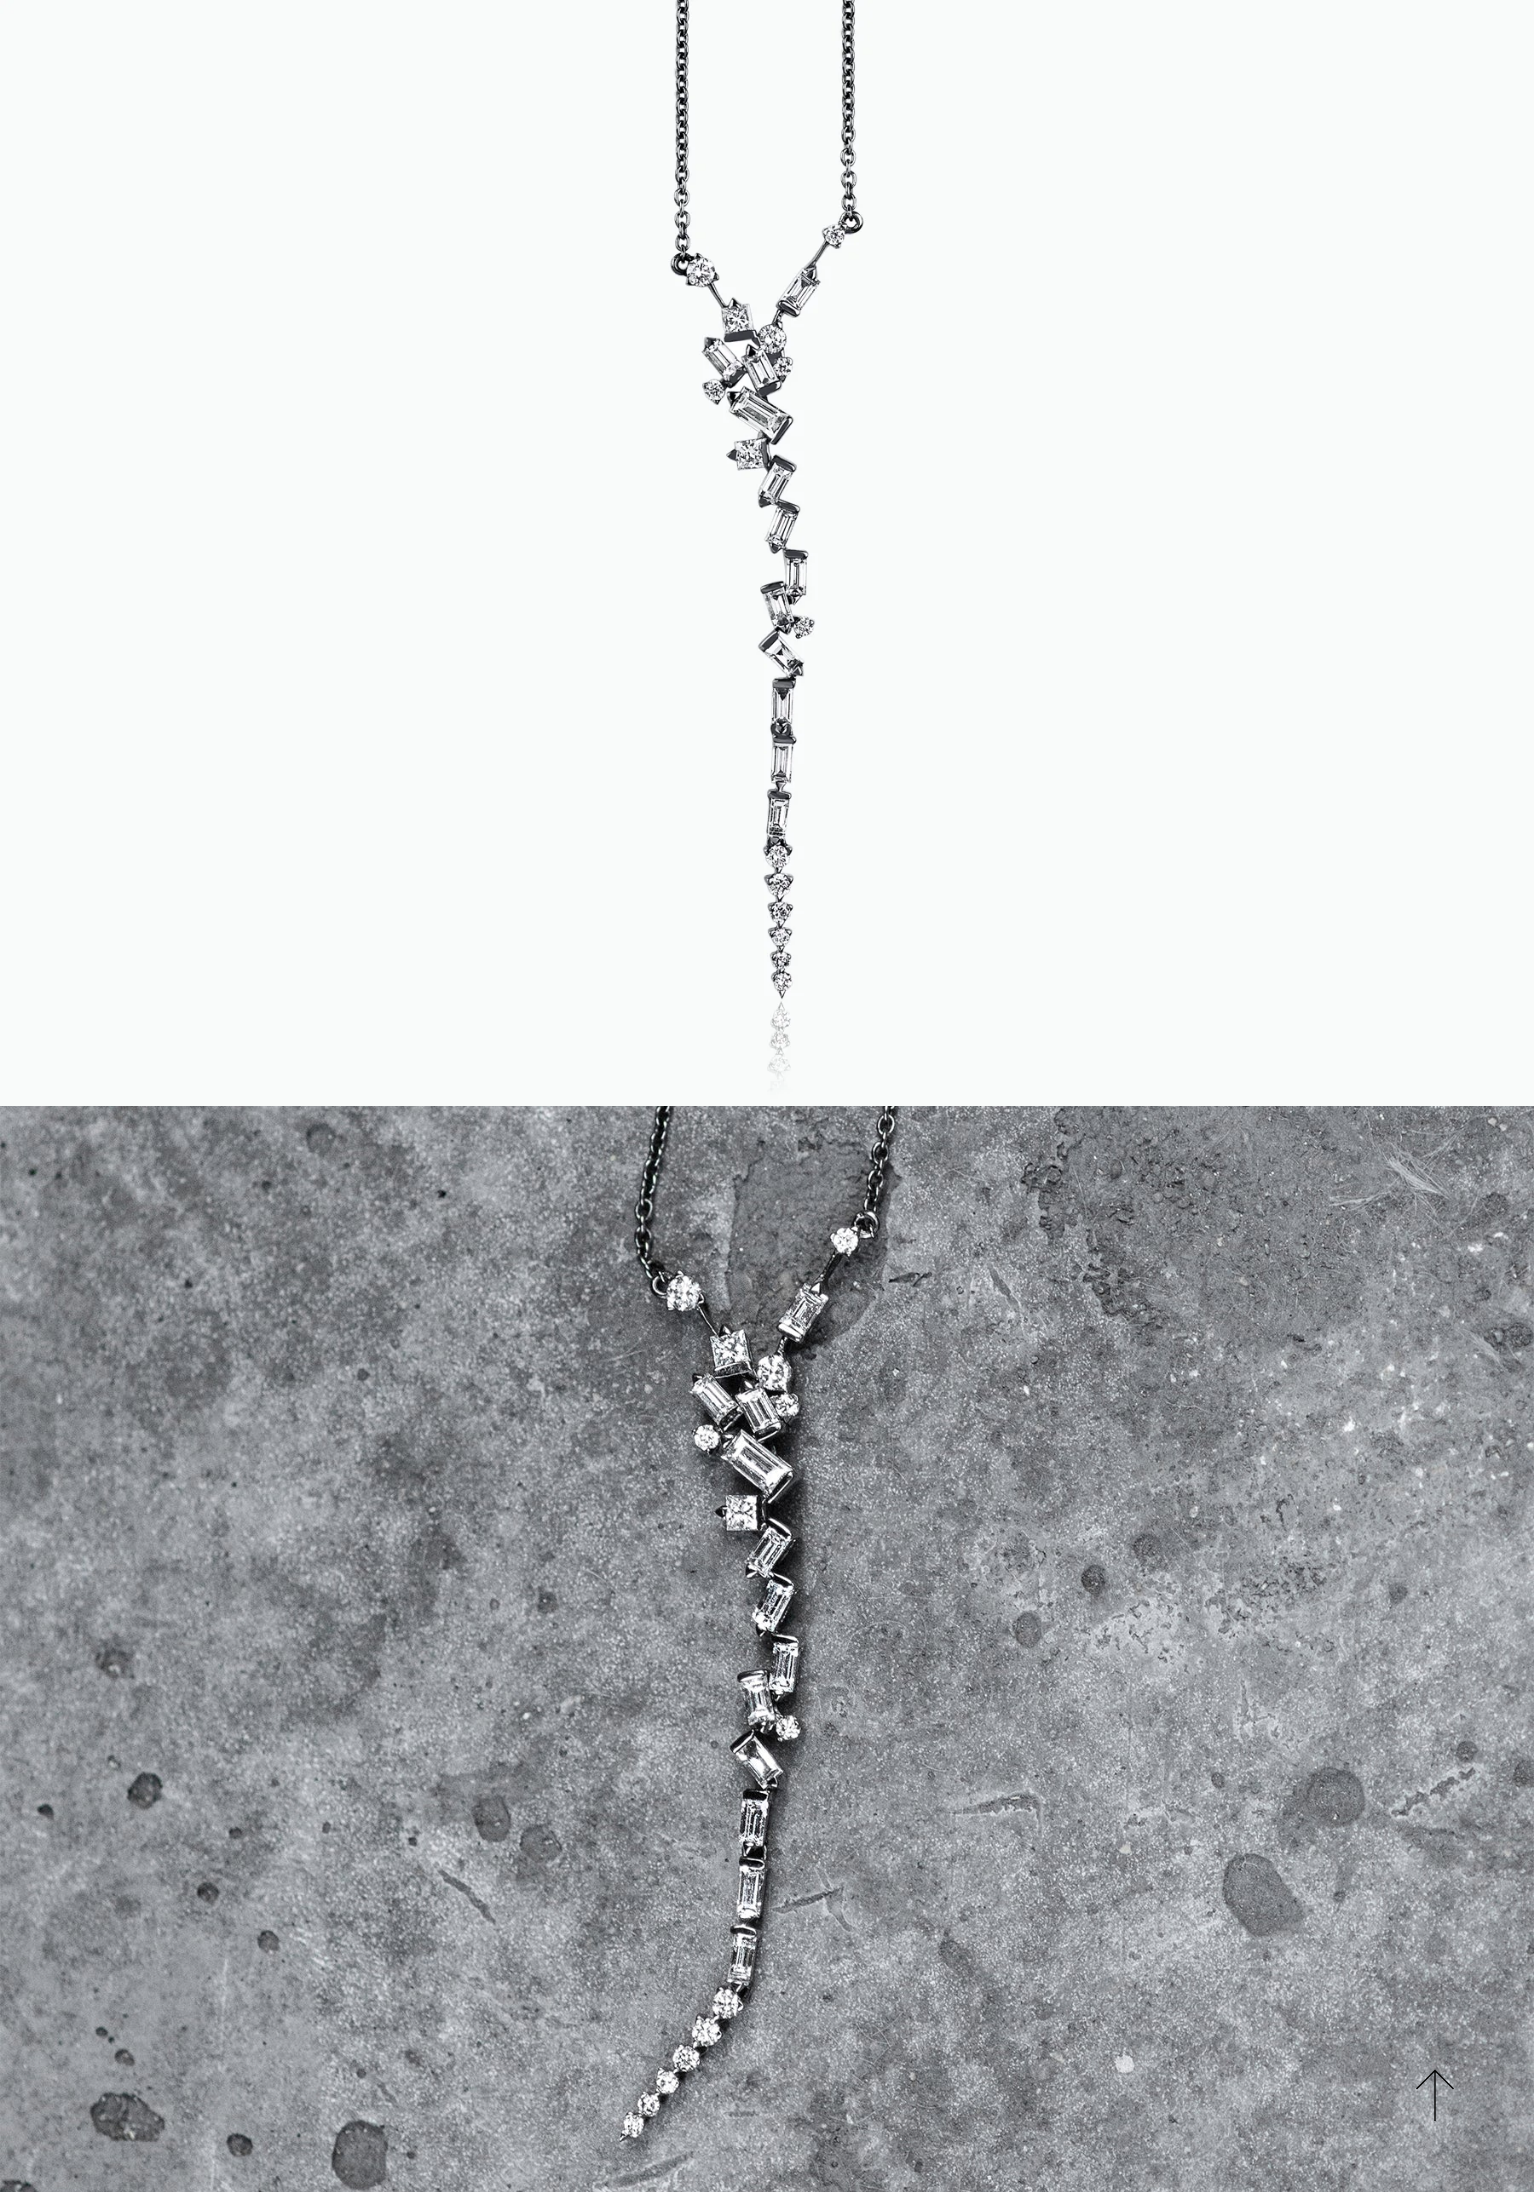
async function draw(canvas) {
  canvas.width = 1534
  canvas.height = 2192
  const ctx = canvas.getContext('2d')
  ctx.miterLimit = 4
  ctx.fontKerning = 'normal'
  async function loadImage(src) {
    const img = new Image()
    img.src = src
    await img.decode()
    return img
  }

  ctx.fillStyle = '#fff'
  ctx.fillRect(0, 0, 1534, 2192)
  ctx.drawImage(await loadImage('image0.png'), 0, 0, 1534, 1106)
  ctx.drawImage(await loadImage('image1.png'), 0, 1106, 1534, 1086)
  ctx.beginPath()
  ctx.moveTo(1435, 2121)
  ctx.lineTo(1435, 2070.5)
  ctx.moveTo(1453.5, 2089)
  ctx.lineTo(1435, 2070.5)
  ctx.lineTo(1416.5, 2089)
  ctx.strokeStyle = '#000'
  ctx.lineWidth = 1.4
  ctx.stroke()
}

draw(document.querySelector('canvas'))
